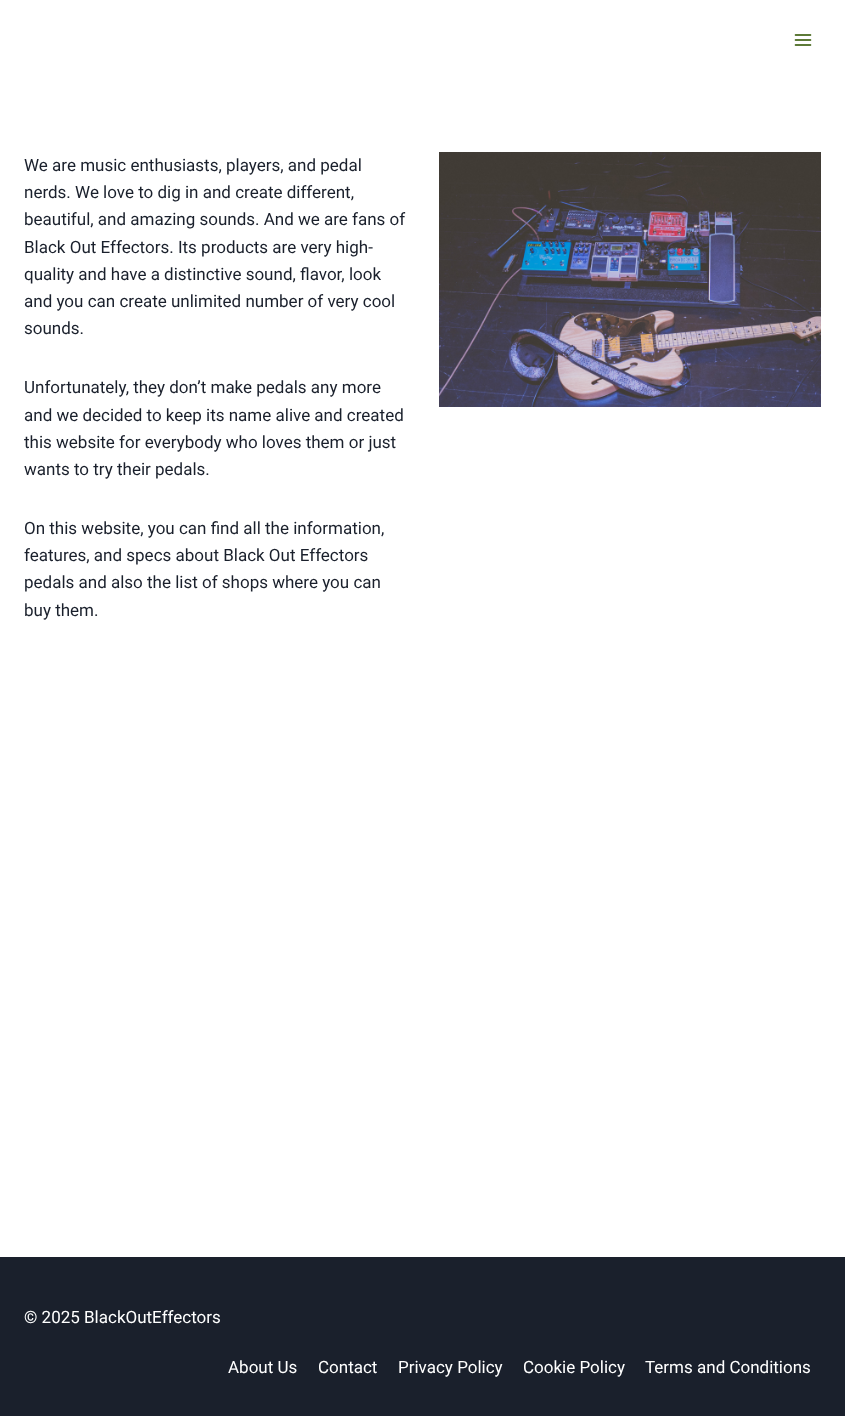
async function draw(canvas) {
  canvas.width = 845
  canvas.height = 1416
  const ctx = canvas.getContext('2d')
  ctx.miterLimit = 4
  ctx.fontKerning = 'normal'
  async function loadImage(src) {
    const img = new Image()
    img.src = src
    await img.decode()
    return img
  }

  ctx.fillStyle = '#fff'
  ctx.fillRect(0, 0, 845, 1416)
  ctx.drawImage(await loadImage('image0.png'), 794, 34, 18, 12)
  ctx.font = '17px Roboto'
  ctx.fillStyle = '#1a202c'
  ctx.fillText('We are music enthusiasts, players, and pedal', 24, 171)
  ctx.fillText('nerds. We love to dig in and create different,', 24, 198)
  ctx.fillText('beautiful, and amazing sounds. And we are fans of', 24, 225)
  ctx.fillText('Black Out Effectors. Its products are very high-', 24, 253)
  ctx.fillText('quality and have a distinctive sound, flavor, look', 24, 280)
  ctx.fillText('and you can create unlimited number of very cool', 24, 307)
  ctx.fillText('sounds.', 24, 334)
  ctx.fillText('Unfortunately, they don’t make pedals any more', 24, 393)
  ctx.fillText('and we decided to keep its name alive and created', 24, 421)
  ctx.fillText('this website for everybody who loves them or just', 24, 448)
  ctx.fillText('wants to try their pedals.', 24, 475)
  ctx.fillText('On this website, you can find all the information,', 24, 534)
  ctx.fillText('features, and specs about Black Out Effectors', 24, 561)
  ctx.fillText('pedals and also the list of shops where you can', 24, 588)
  ctx.fillText('buy them.', 24, 616)
  ctx.drawImage(await loadImage('image1.png'), 439, 152, 382, 255)
  ctx.fillRect(0, 1257, 845, 159)
  ctx.fillStyle = '#fff'
  ctx.fillText('© 2025 BlackOutEffectors', 24, 1323)
  ctx.fillText('About Us', 228, 1373)
  ctx.fillText('Contact', 318, 1373)
  ctx.fillText('Privacy Policy', 398, 1373)
  ctx.fillText('Cookie Policy', 523, 1373)
  ctx.fillText('Terms and Conditions', 645, 1373)
}

draw(document.querySelector('canvas'))
